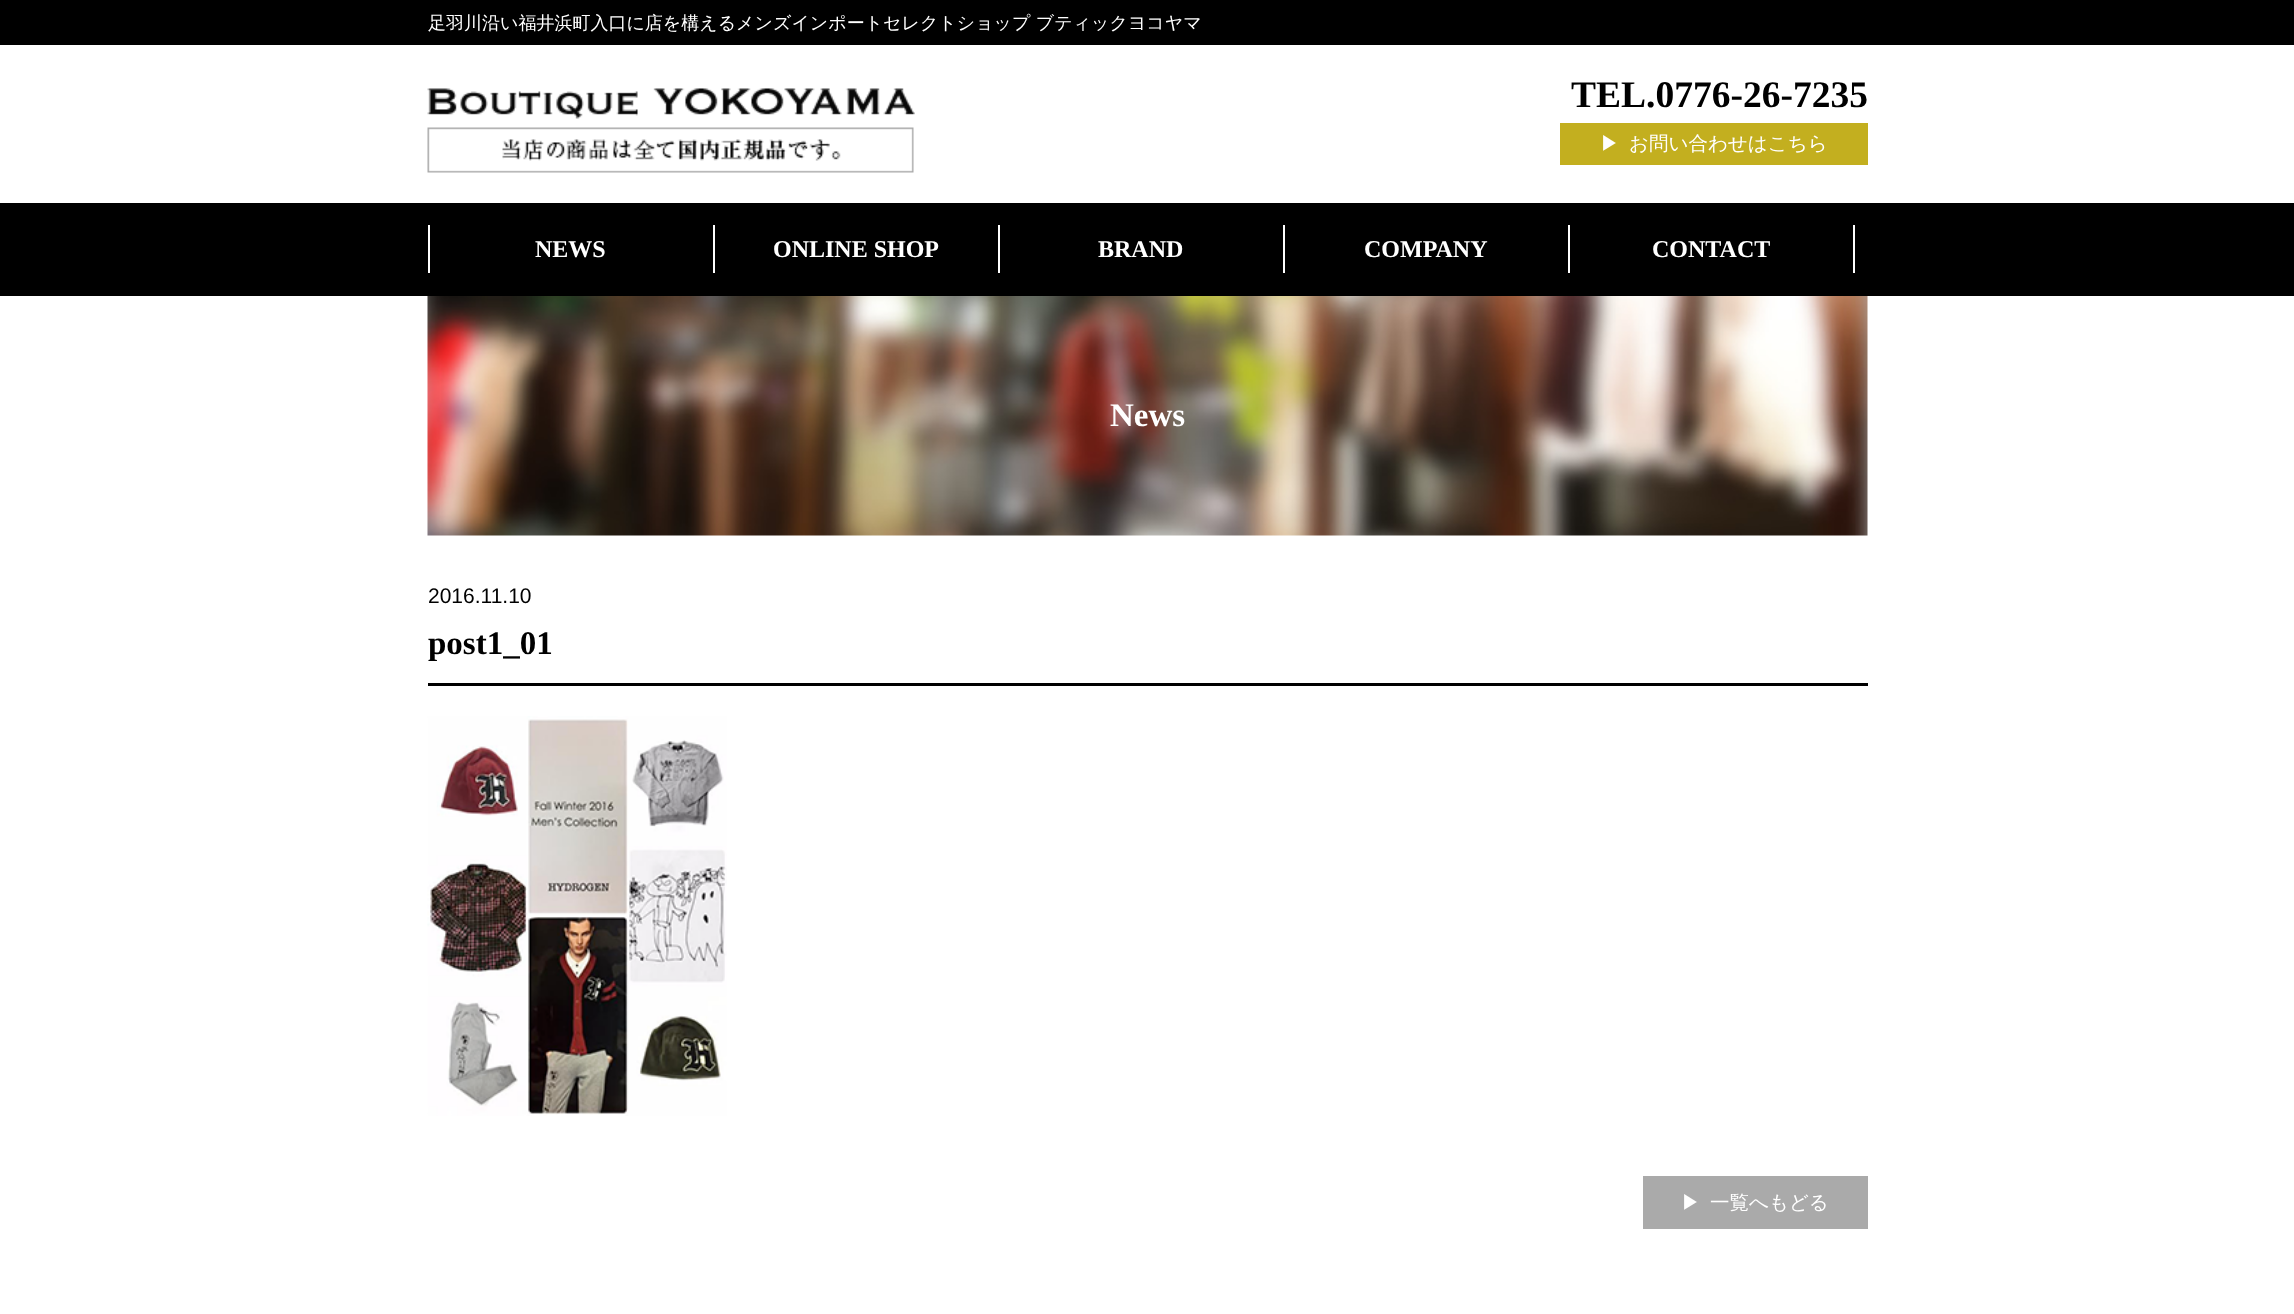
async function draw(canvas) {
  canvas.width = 2294
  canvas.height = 1314
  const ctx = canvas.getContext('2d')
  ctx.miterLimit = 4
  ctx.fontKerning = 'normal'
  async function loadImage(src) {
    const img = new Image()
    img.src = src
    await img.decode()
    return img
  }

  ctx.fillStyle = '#fff'
  ctx.fillRect(0, 0, 2294, 1314)
  ctx.fillStyle = '#000'
  ctx.fillRect(0, 0, 2294, 45)
  ctx.font = '500 18px WenQuanYi Zen Hei'
  ctx.fillStyle = '#fff'
  ctx.fillText('足羽川沿い福井浜町入口に店を構えるメンズインポートセレクトショップ ブティックヨコヤマ', 428, 29)
  ctx.drawImage(await loadImage('image0.png'), 427, 88, 488, 85)
  ctx.font = 'bold 37.5px Liberation Serif'
  ctx.fillStyle = '#000'
  ctx.fillText('TEL.0776-26-7235', 1571, 107)
  ctx.fillStyle = '#c3af1f'
  ctx.fillRect(1560, 123, 308, 42)
  ctx.font = '500 19.5px WenQuanYi Zen Hei'
  ctx.fillStyle = '#fff'
  ctx.fillText('▶', 1600, 150)
  ctx.fillText('お問い合わせはこちら', 1629, 150)
  ctx.fillStyle = '#000'
  ctx.fillRect(0, 203, 2294, 93)
  ctx.fillStyle = '#fff'
  ctx.fillRect(713, 225, 2, 48)
  ctx.fillRect(428, 225, 2, 48)
  ctx.font = 'bold 24px Liberation Serif'
  ctx.fillText('NEWS', 535, 257)
  ctx.fillRect(998, 225, 2, 48)
  ctx.fillText('ONLINE SHOP', 773, 257)
  ctx.fillRect(1283, 225, 2, 48)
  ctx.fillText('BRAND', 1098, 257)
  ctx.fillRect(1568, 225, 2, 48)
  ctx.fillText('COMPANY', 1364, 257)
  ctx.fillRect(1853, 225, 2, 48)
  ctx.fillText('CONTACT', 1652, 257)
  ctx.drawImage(await loadImage('image1.png'), 427, 296, 1441, 240)
  ctx.font = 'bold 33px Liberation Serif'
  ctx.fillText('News', 1110, 426)
  ctx.font = '21px Liberation Sans'
  ctx.fillStyle = '#000'
  ctx.fillText('2016.11.10', 428, 603)
  ctx.fillRect(428, 683, 1440, 3)
  ctx.font = 'bold 33px Liberation Serif'
  ctx.fillText('post1_01', 428, 654)
  ctx.drawImage(await loadImage('image2.png'), 427, 716, 300, 400)
  ctx.fillStyle = '#aaa'
  ctx.fillRect(1643, 1176, 225, 53)
  ctx.font = '500 19.5px WenQuanYi Zen Hei'
  ctx.fillStyle = '#fff'
  ctx.fillText('▶', 1681, 1209)
  ctx.fillText('一覧へもどる', 1710, 1209)
}

draw(document.querySelector('canvas'))
